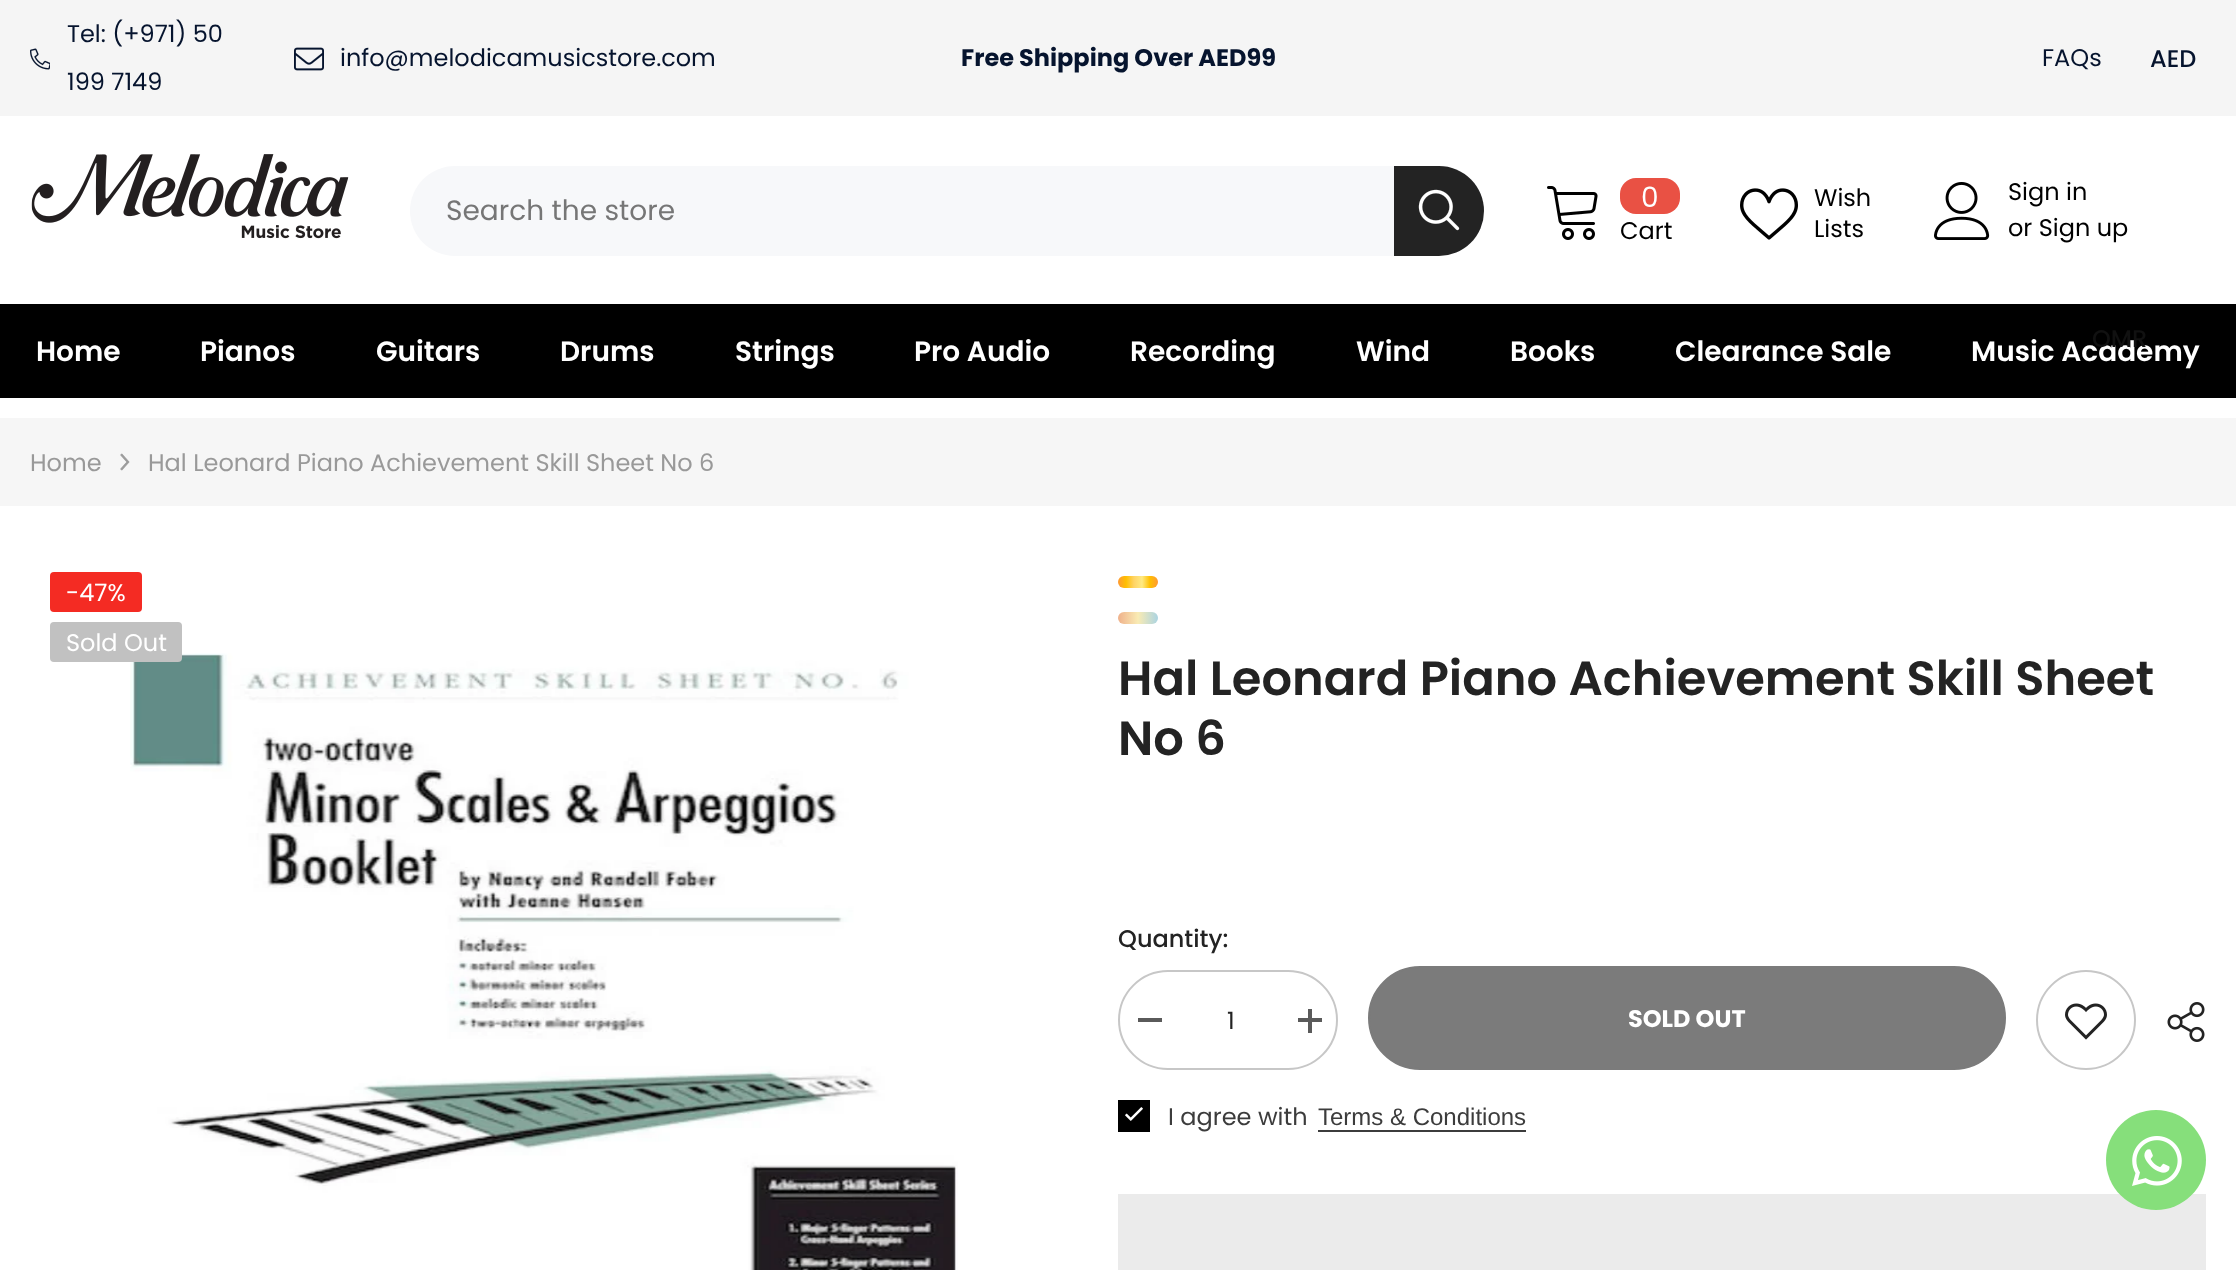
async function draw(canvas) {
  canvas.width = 2236
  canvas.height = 1270
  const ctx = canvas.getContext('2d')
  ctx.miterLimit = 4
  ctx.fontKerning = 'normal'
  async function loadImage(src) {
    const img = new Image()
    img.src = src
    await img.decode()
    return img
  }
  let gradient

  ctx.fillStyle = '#fff'
  ctx.fillRect(0, 0, 2236, 1270)
  ctx.fillStyle = '#f5f5f5'
  ctx.fillRect(0, 0, 2236, 116)
  ctx.drawImage(await loadImage('image0.png'), 30, 48, 20, 22)
  ctx.font = '24px Poppins'
  ctx.fillStyle = '#06142e'
  ctx.fillText('Tel: (+971) 50', 67, 42)
  ctx.fillText('199 7149', 67, 90)
  ctx.drawImage(await loadImage('image1.png'), 294, 47, 30, 24)
  ctx.fillText('info@melodicamusicstore.com', 340, 66)
  ctx.font = 'bold 24px Poppins'
  ctx.fillText('Free Shipping Over AED99', 961, 66)
  ctx.font = '24px Poppins'
  ctx.fillText('FAQs', 2042, 66)
  ctx.font = '500 24px Poppins'
  ctx.fillText('AED', 2150, 67)
  ctx.fillStyle = '#000'
  ctx.fillRect(0, 304, 2236, 94)
  ctx.font = '600 28px Poppins'
  ctx.fillStyle = '#fff'
  ctx.fillText('Music Academy', 1971, 361)
  ctx.font = '500 24px Poppins'
  ctx.fillStyle = '#111'
  ctx.fillText('OMR', 2092, 347)
  ctx.drawImage(await loadImage('image2.png'), 31, 154, 318, 85)
  ctx.fillStyle = '#f7f8fa'
  ctx.beginPath()
  ctx.roundRect(410, 166, 1074, 90, 45)
  ctx.fill()
  ctx.font = '28px Poppins'
  ctx.fillStyle = '#767676'
  ctx.fillText('Search the store', 446, 220)
  ctx.fillStyle = '#232323'
  ctx.beginPath()
  ctx.roundRect(1394, 166, 90, 90, [0, 45, 45, 0])
  ctx.fill()
  ctx.drawImage(await loadImage('image3.png'), 1418, 189, 42, 42)
  ctx.drawImage(await loadImage('image4.png'), 1547, 186, 51, 54)
  ctx.fillStyle = '#e95144'
  ctx.beginPath()
  ctx.roundRect(1620, 178, 60, 36, 16)
  ctx.fill()
  ctx.fillStyle = '#fff'
  ctx.fillText('0', 1641, 207)
  ctx.font = '24px Poppins'
  ctx.fillStyle = '#000'
  ctx.fillText('Cart', 1620, 239)
  ctx.drawImage(await loadImage('image5.png'), 1740, 188, 58, 52)
  ctx.fillText('Wish', 1814, 206)
  ctx.fillText('Lists', 1814, 237)
  ctx.drawImage(await loadImage('image6.png'), 1934, 182, 56, 58)
  ctx.fillText('Sign in', 2008, 200)
  ctx.fillText('or Sign up', 2008, 236)
  ctx.font = '600 28px Poppins'
  ctx.fillStyle = '#fff'
  ctx.fillText('Home', 36, 361)
  ctx.fillText('Pianos', 200, 361)
  ctx.fillText('Guitars', 376, 361)
  ctx.fillText('Drums', 560, 361)
  ctx.fillText('Strings', 735, 361)
  ctx.fillText('Pro Audio', 914, 361)
  ctx.fillText('Recording', 1130, 361)
  ctx.fillText('Wind', 1356, 361)
  ctx.fillText('Books', 1510, 361)
  ctx.fillText('Clearance Sale', 1675, 361)
  ctx.fillStyle = '#f6f6f6'
  ctx.fillRect(0, 418, 2236, 88)
  ctx.font = '24px Poppins'
  ctx.fillStyle = '#999'
  ctx.fillText('Home', 30, 471)
  ctx.drawImage(await loadImage('image7.png'), 120, 453, 10, 18)
  ctx.fillText('Hal Leonard Piano Achievement Skill Sheet No 6', 148, 471)
  ctx.fillStyle = '#f42b23'
  ctx.beginPath()
  ctx.roundRect(50, 572, 92, 40, 4)
  ctx.fill()
  ctx.fillStyle = '#fff'
  ctx.fillText('-47%', 66, 601)
  ctx.drawImage(await loadImage('image8.png'), 130, 653, 828, 617)
  ctx.fillStyle = '#c1c1c1'
  ctx.beginPath()
  ctx.roundRect(50, 622, 132, 40, 4)
  ctx.fill()
  ctx.fillStyle = '#fff'
  ctx.fillText('Sold Out', 66, 651)
  gradient = ctx.createLinearGradient(1118, 582, 1158, 582)
  gradient.addColorStop(0, '#f93')
  gradient.addColorStop(0.2, '#ffbf00')
  gradient.addColorStop(0.4, '#ffd466')
  gradient.addColorStop(0.6, '#ffea82')
  gradient.addColorStop(0.8, '#ffbf00')
  gradient.addColorStop(1, '#f93')
  ctx.fillStyle = gradient
  ctx.beginPath()
  ctx.roundRect(1118, 576, 40, 12, 6)
  ctx.fill()
  gradient = ctx.createLinearGradient(1118, 618, 1158, 618)
  gradient.addColorStop(0, '#efb18b')
  gradient.addColorStop(0.5, '#f9ebb4')
  gradient.addColorStop(1, '#abd4e2')
  ctx.fillStyle = gradient
  ctx.beginPath()
  ctx.roundRect(1118, 612, 40, 12, 6)
  ctx.fill()
  ctx.font = '600 48px Poppins'
  ctx.fillStyle = '#232323'
  ctx.fillText('Hal Leonard Piano Achievement Skill Sheet', 1118, 695)
  ctx.fillText('No 6', 1118, 755)
  ctx.font = '500 24px Poppins'
  ctx.fillText('Quantity:', 1118, 947)
  ctx.beginPath()
  ctx.roundRect(1119, 971, 218, 98, 49)
  ctx.strokeStyle = '#c7c7c7'
  ctx.lineWidth = 2
  ctx.stroke()
  ctx.fillStyle = '#5a5a5a'
  ctx.fillRect(1138, 1018, 24, 4)
  ctx.font = '24px Poppins'
  ctx.fillStyle = '#232323'
  ctx.fillText('1', 1227, 1029)
  ctx.fillStyle = '#5a5a5a'
  ctx.fillRect(1298, 1018, 24, 4)
  ctx.fillRect(1308, 1009, 4, 24)
  ctx.fillStyle = '#7b7b7b'
  ctx.beginPath()
  ctx.roundRect(1369, 967, 636, 102, 51)
  ctx.fill()
  ctx.strokeStyle = '#7b7b7b'
  ctx.stroke()
  ctx.font = 'bold 24px Poppins'
  ctx.fillStyle = '#fff'
  ctx.fillText('SOLD OUT', 1628, 1027)
  ctx.beginPath()
  ctx.arc(2086, 1020, 49, 0, 2 * Math.PI)
  ctx.strokeStyle = '#c7c7c7'
  ctx.stroke()
  ctx.drawImage(await loadImage('image9.png'), 2065, 1003, 42, 37)
  ctx.drawImage(await loadImage('image10.png'), 2167, 1002, 38, 40)
  ctx.fillStyle = '#000'
  ctx.fillRect(1118, 1100, 32, 32)
  ctx.font = '24px Poppins'
  ctx.fillStyle = '#3c3c3c'
  ctx.fillText('I agree with', 1168, 1125)
  ctx.drawImage(await loadImage('image11.png'), 1125, 1107, 18, 14)
  ctx.font = '24px Liberation Sans'
  ctx.fillText('Terms & Conditions', 1318, 1125)
  ctx.fillRect(1318, 1130, 208, 2)
  ctx.fillStyle = '#ebebeb'
  ctx.fillRect(1118, 1194, 1088, 76)
  ctx.fillStyle = '#86df7b'
  ctx.beginPath()
  ctx.arc(2156, 1160, 50, 0, 2 * Math.PI)
  ctx.fill()
  ctx.drawImage(await loadImage('image12.png'), 2132, 1136, 50, 50)
}

draw(document.querySelector('canvas'))
